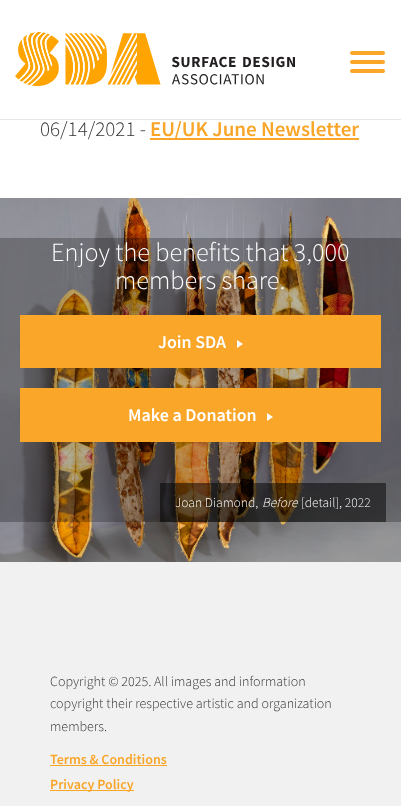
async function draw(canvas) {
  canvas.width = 401
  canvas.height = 806
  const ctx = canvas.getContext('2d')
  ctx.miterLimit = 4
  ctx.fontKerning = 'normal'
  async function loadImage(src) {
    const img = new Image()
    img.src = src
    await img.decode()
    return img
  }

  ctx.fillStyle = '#fff'
  ctx.fillRect(0, 0, 401, 806)
  ctx.fillStyle = '#e6e7e8'
  ctx.fillRect(0, 119, 401, 1)
  ctx.drawImage(await loadImage('image0.png'), 15, 32, 280, 54)
  ctx.fillStyle = '#faa628'
  ctx.beginPath()
  ctx.roundRect(350, 51, 35, 4, 2)
  ctx.fill()
  ctx.beginPath()
  ctx.roundRect(350, 60, 35, 4, 2)
  ctx.fill()
  ctx.beginPath()
  ctx.roundRect(350, 69, 35, 4, 2)
  ctx.fill()
  ctx.font = '300 21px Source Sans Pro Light'
  ctx.fillStyle = '#333'
  ctx.fillText('06/14/2021 -', 40, 136)
  ctx.fillStyle = '#f9a528'
  ctx.fillRect(150, 138, 209, 2)
  ctx.font = '600 21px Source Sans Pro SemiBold'
  ctx.fillText('EU/UK June Newsletter', 150, 136)
  ctx.drawImage(await loadImage('image1.png'), 0, 198, 401, 364)
  ctx.fillStyle = '#00000040'
  ctx.fillRect(0, 238, 401, 284)
  ctx.font = '300 26.25px Source Sans Pro Light'
  ctx.fillStyle = '#fff'
  ctx.fillText('Enjoy the benefits that 3,000', 51, 261)
  ctx.fillText('members share.', 115, 289)
  ctx.fillStyle = '#faa628'
  ctx.fillRect(20, 315, 361, 53)
  ctx.font = '600 18px Source Sans Pro SemiBold'
  ctx.fillStyle = '#fff'
  ctx.fillText('Join SDA', 158, 348)
  ctx.beginPath()
  ctx.moveTo(237, 348)
  ctx.lineTo(237, 340)
  ctx.lineTo(243, 344)
  ctx.closePath()
  ctx.fill()
  ctx.fillStyle = '#faa628'
  ctx.fillRect(20, 388, 361, 54)
  ctx.fillStyle = '#fff'
  ctx.fillText('Make a Donation', 128, 421)
  ctx.beginPath()
  ctx.moveTo(267, 421)
  ctx.lineTo(267, 413)
  ctx.lineTo(273, 417)
  ctx.closePath()
  ctx.fill()
  ctx.fillStyle = '#00000080'
  ctx.fillRect(160, 483, 226, 39)
  ctx.font = '300 13.5px Source Sans Pro Light'
  ctx.fillStyle = '#fff'
  ctx.fillText('Joan Diamond,', 175, 507)
  ctx.font = 'italic 300 13.5px Source Sans Pro Light'
  ctx.fillText('Before', 262, 507)
  ctx.font = '300 13.5px Source Sans Pro Light'
  ctx.fillText('[detail], 2022', 301, 507)
  ctx.fillStyle = '#f1f1f2'
  ctx.fillRect(0, 562, 401, 244)
  ctx.font = '300 14px Source Sans Pro Light'
  ctx.fillStyle = '#333'
  ctx.fillText('Copyright © 2025. All images and information', 50, 686)
  ctx.fillText('copyright their respective artistic and organization', 50, 708)
  ctx.fillText('members.', 50, 731)
  ctx.font = '600 14px Source Sans Pro SemiBold'
  ctx.fillStyle = '#f9a528'
  ctx.fillText('Terms & Conditions', 50, 764)
  ctx.fillRect(50, 765, 117, 1)
  ctx.fillRect(50, 790, 84, 1)
  ctx.fillText('Privacy Policy', 50, 789)
}

draw(document.querySelector('canvas'))
